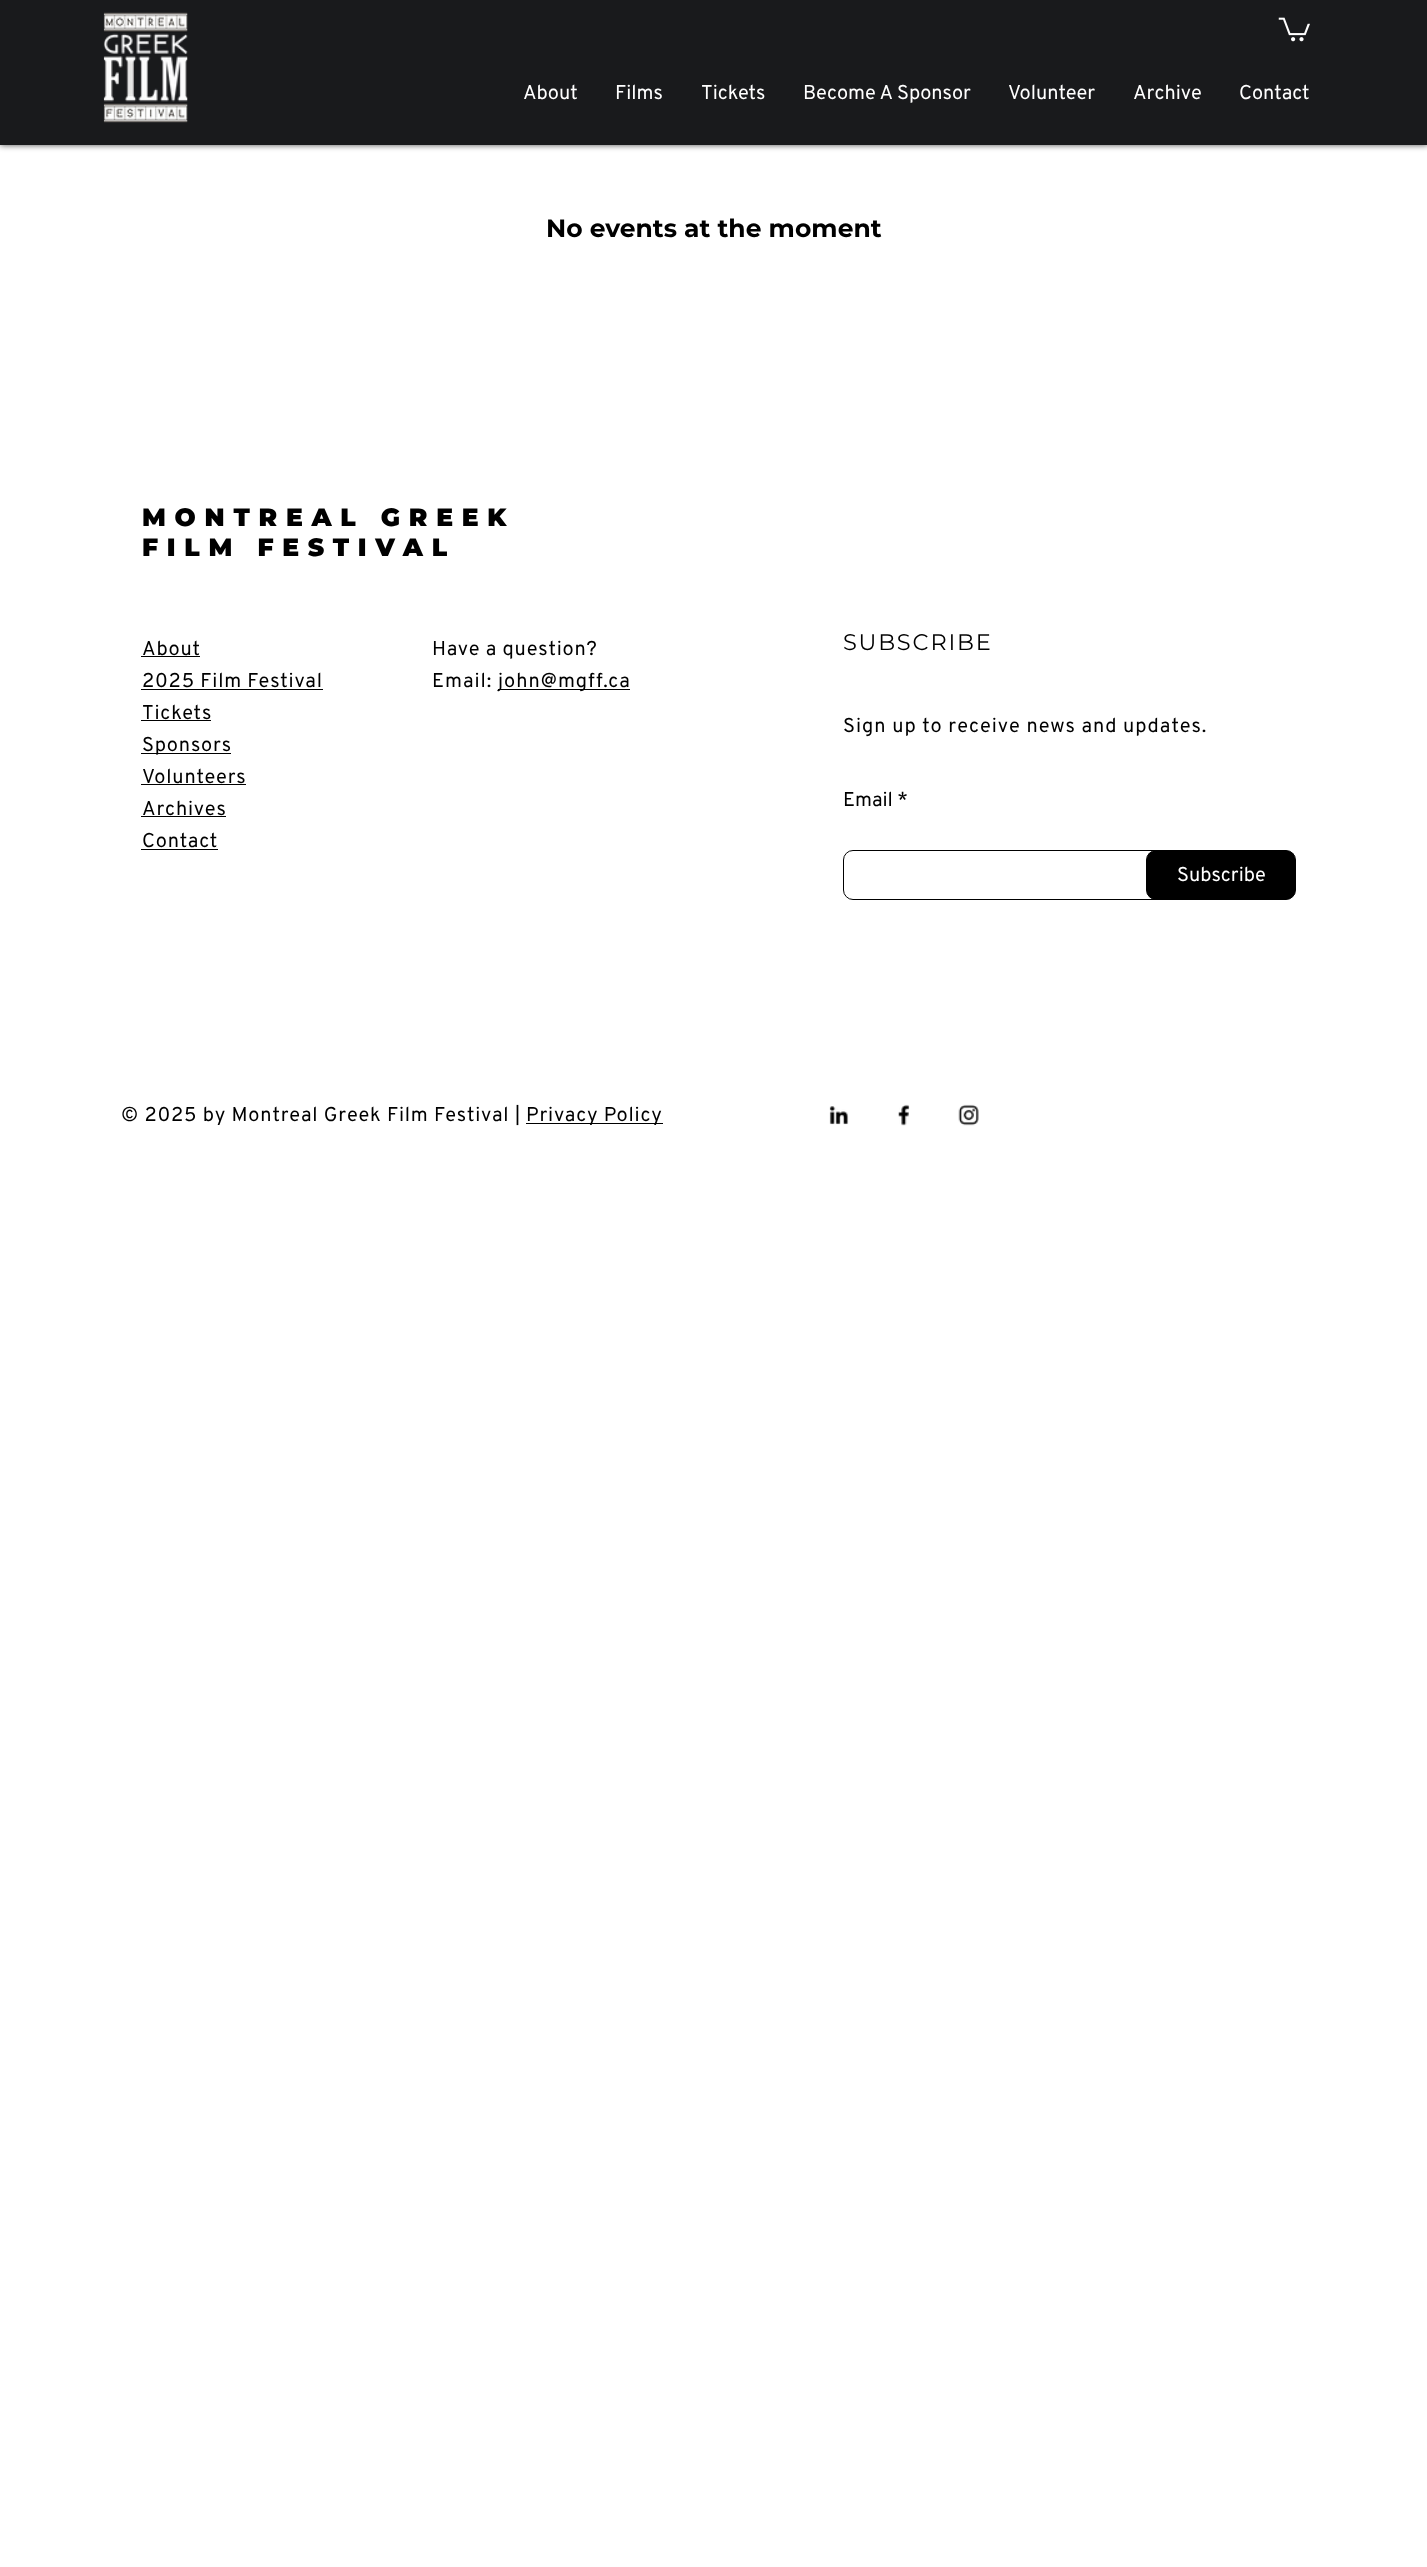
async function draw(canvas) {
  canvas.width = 1427
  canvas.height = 2567
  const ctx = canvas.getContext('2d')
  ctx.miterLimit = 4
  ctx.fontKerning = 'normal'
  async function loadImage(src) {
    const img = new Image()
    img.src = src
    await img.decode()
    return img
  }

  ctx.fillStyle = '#fff'
  ctx.fillRect(0, 0, 1427, 2567)
  ctx.fillStyle = '#000000b3'
  ctx.filter = 'blur(3px)'
  ctx.beginPath()
  ctx.rect(0, 0, 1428, 145)
  ctx.fill()
  ctx.filter = 'none'
  ctx.fillStyle = '#191a1c'
  ctx.fillRect(0, 0, 1427, 145)
  ctx.drawImage(await loadImage('image0.png'), 103, 12, 85, 111)
  ctx.drawImage(await loadImage('image1.png'), 1278, 17, 32, 25)
  ctx.font = '20px Overpass'
  ctx.fillStyle = '#fff'
  ctx.fillText('About', 523, 99)
  ctx.fillText('Films', 615, 99)
  ctx.fillText('Tickets', 701, 99)
  ctx.fillText('Become A Sponsor', 803, 99)
  ctx.fillText('Volunteer', 1008, 99)
  ctx.fillText('Archive', 1133, 99)
  ctx.fillText('Contact', 1239, 99)
  ctx.font = 'bold 25px Montserrat'
  ctx.fillStyle = '#000'
  ctx.fillText('No events at the moment', 546, 237)
  ctx.letterSpacing = '8.75px'
  ctx.font = '100 25px Montserrat'
  ctx.fillText('MONTREAL GREEK', 142, 526)
  ctx.fillText('FILM FESTIVAL', 142, 556)
  ctx.letterSpacing = '0.8px'
  ctx.font = '20px Overpass'
  ctx.fillText('About', 142, 655)
  ctx.fillRect(141, 656, 59, 1)
  ctx.fillText('2025 Film Festival', 142, 687)
  ctx.fillRect(141, 689, 182, 1)
  ctx.fillText('Tickets', 142, 719)
  ctx.fillRect(141, 720, 70, 1)
  ctx.fillRect(141, 753, 90, 1)
  ctx.fillText('Sponsors', 142, 751)
  ctx.fillText('Volunteers', 142, 783)
  ctx.fillRect(141, 784, 105, 1)
  ctx.fillText('Archives', 142, 815)
  ctx.fillRect(141, 816, 85, 1)
  ctx.fillText('Contact', 142, 847)
  ctx.fillRect(141, 849, 77, 1)
  ctx.fillText('Have a question?', 432, 655)
  ctx.letterSpacing = '1px'
  ctx.fillText('Email:', 432, 687)
  ctx.fillRect(498, 689, 132, 1)
  ctx.fillText('john@mgff.ca', 498, 687)
  ctx.letterSpacing = '1.75px'
  ctx.font = '22.5px Montserrat'
  ctx.fillText('SUBSCRIBE', 843, 650)
  ctx.letterSpacing = '1px'
  ctx.font = '20px Overpass'
  ctx.fillText('Sign up to receive news and updates.', 843, 732)
  ctx.letterSpacing = '0px'
  ctx.fillText('Email *', 843, 806)
  ctx.beginPath()
  ctx.roundRect(843.5, 850.5, 329, 49, 9.5)
  ctx.strokeStyle = '#000'
  ctx.stroke()
  ctx.beginPath()
  ctx.roundRect(1146.5, 850.5, 149, 49, 9.5)
  ctx.fill()
  ctx.stroke()
  ctx.fillStyle = '#fff'
  ctx.fillText('Subscribe', 1177, 881)
  ctx.letterSpacing = '0.8px'
  ctx.fillStyle = '#000'
  ctx.fillText('© 2025 by Montreal Greek Film Festival |', 121, 1121)
  ctx.fillRect(526, 1123, 137, 1)
  ctx.fillText('Privacy Policy', 526, 1121)
  ctx.drawImage(await loadImage('image2.png'), 829, 1106, 20, 19)
  ctx.drawImage(await loadImage('image3.png'), 898, 1104, 12, 22)
  ctx.drawImage(await loadImage('image4.png'), 958, 1104, 21, 22)
}

draw(document.querySelector('canvas'))
